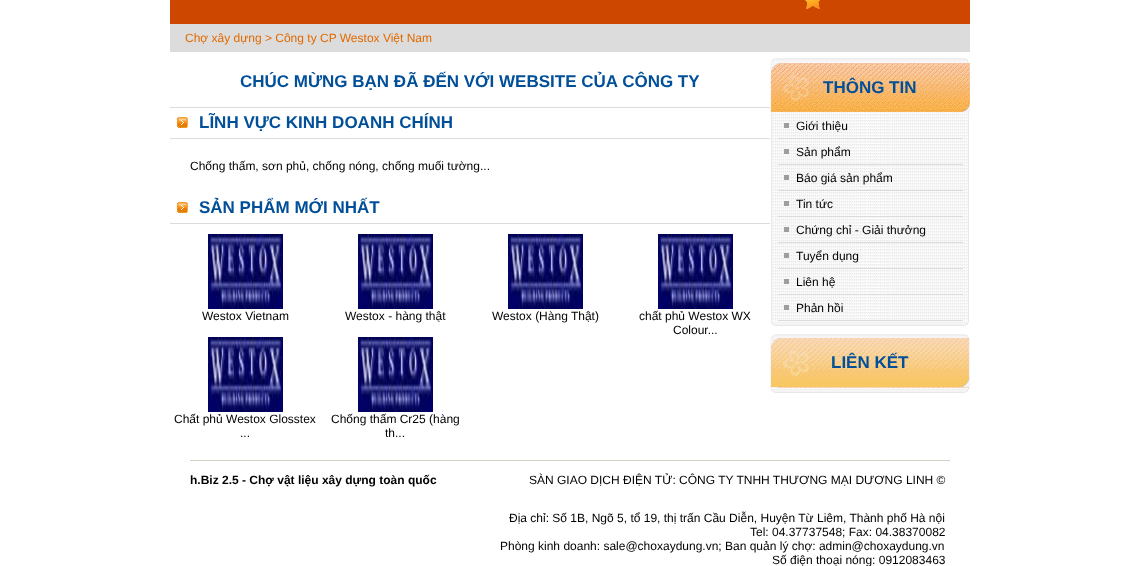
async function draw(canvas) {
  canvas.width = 1140
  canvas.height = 566
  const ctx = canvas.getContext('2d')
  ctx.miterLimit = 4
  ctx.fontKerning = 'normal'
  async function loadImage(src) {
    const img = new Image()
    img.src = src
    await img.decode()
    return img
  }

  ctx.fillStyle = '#fff'
  ctx.fillRect(0, 0, 1140, 566)
  ctx.fillStyle = '#cd4700'
  ctx.fillRect(170, 0, 800, 24)
  ctx.drawImage(await loadImage('image0.png'), 805, 0, 15, 9)
  ctx.fillStyle = '#dddcdc'
  ctx.fillRect(170, 24, 800, 28)
  ctx.font = '12px Liberation Sans'
  ctx.fillStyle = '#e16900'
  ctx.fillText('Chợ xây dựng > Công ty CP Westox Việt Nam', 185, 42)
  ctx.fillStyle = '#dcdcdd'
  ctx.fillRect(170, 107, 600, 1)
  ctx.font = 'bold 17px Liberation Sans'
  ctx.fillStyle = '#004f98'
  ctx.fillText('CHÚC MỪNG BẠN ĐÃ ĐẾN VỚI WEBSITE CỦA CÔNG TY', 240, 87)
  ctx.fillStyle = '#dcdcdd'
  ctx.fillRect(170, 138, 600, 1)
  ctx.drawImage(await loadImage('image1.png'), 176, 117, 12, 11)
  ctx.fillStyle = '#004f98'
  ctx.fillText('LĨNH VỰC KINH DOANH CHÍNH', 199, 128)
  ctx.font = '12px Liberation Sans'
  ctx.fillStyle = '#000'
  ctx.fillText('Chống thấm, sơn phủ, chống nóng, chống muối tường...', 190, 170)
  ctx.fillStyle = '#dcdcdd'
  ctx.fillRect(170, 223, 600, 1)
  ctx.drawImage(await loadImage('image1.png'), 176, 202, 12, 11)
  ctx.font = 'bold 17px Liberation Sans'
  ctx.fillStyle = '#004f98'
  ctx.fillText('SẢN PHẨM MỚI NHẤT', 199, 213)
  ctx.drawImage(await loadImage('image2.png'), 208, 234, 75, 75)
  ctx.font = '12px Liberation Sans'
  ctx.fillStyle = '#000'
  ctx.fillText('Westox Vietnam', 202, 320)
  ctx.drawImage(await loadImage('image2.png'), 358, 234, 75, 75)
  ctx.fillText('Westox - hàng thật', 345, 320)
  ctx.drawImage(await loadImage('image2.png'), 508, 234, 75, 75)
  ctx.fillText('Westox (Hàng Thật)', 492, 320)
  ctx.drawImage(await loadImage('image2.png'), 658, 234, 75, 75)
  ctx.fillText('chất phủ Westox WX', 639, 320)
  ctx.fillText('Colour...', 673, 334)
  ctx.drawImage(await loadImage('image2.png'), 208, 337, 75, 75)
  ctx.fillText('Chất phủ Westox Glosstex', 174, 423)
  ctx.fillText('...', 240, 437)
  ctx.drawImage(await loadImage('image2.png'), 358, 337, 75, 75)
  ctx.fillText('Chống thấm Cr25 (hàng', 331, 423)
  ctx.fillText('th...', 385, 437)
  ctx.drawImage(await loadImage('image3.png'), 771, 58, 198, 4)
  ctx.drawImage(await loadImage('image4.png'), 771, 113, 198, 208)
  ctx.drawImage(await loadImage('image5.png'), 770, 62, 200, 51)
  ctx.font = 'bold 17px Liberation Sans'
  ctx.fillStyle = '#004f98'
  ctx.fillText('THÔNG TIN', 823, 93)
  ctx.font = '12px Liberation Sans'
  ctx.fillStyle = '#000'
  ctx.fillText('Giới thiệu', 796, 130)
  ctx.fillStyle = '#dcdcdd'
  ctx.fillRect(778, 138, 185, 1)
  ctx.fillStyle = '#9e9e9e'
  ctx.fillRect(784, 123, 5, 5)
  ctx.fillStyle = '#000'
  ctx.fillText('Sản phẩm', 796, 156)
  ctx.fillStyle = '#dcdcdd'
  ctx.fillRect(778, 164, 185, 1)
  ctx.fillStyle = '#9e9e9e'
  ctx.fillRect(784, 149, 5, 5)
  ctx.fillStyle = '#000'
  ctx.fillText('Báo giá sản phẩm', 796, 182)
  ctx.fillStyle = '#dcdcdd'
  ctx.fillRect(778, 190, 185, 1)
  ctx.fillStyle = '#9e9e9e'
  ctx.fillRect(784, 175, 5, 5)
  ctx.fillStyle = '#000'
  ctx.fillText('Tin tức', 796, 208)
  ctx.fillStyle = '#dcdcdd'
  ctx.fillRect(778, 216, 185, 1)
  ctx.fillStyle = '#9e9e9e'
  ctx.fillRect(784, 201, 5, 5)
  ctx.fillStyle = '#000'
  ctx.fillText('Chứng chỉ - Giải thưởng', 796, 234)
  ctx.fillStyle = '#dcdcdd'
  ctx.fillRect(778, 242, 185, 1)
  ctx.fillStyle = '#9e9e9e'
  ctx.fillRect(784, 227, 5, 5)
  ctx.fillStyle = '#000'
  ctx.fillText('Tuyển dụng', 796, 260)
  ctx.fillStyle = '#dcdcdd'
  ctx.fillRect(778, 268, 185, 1)
  ctx.fillStyle = '#9e9e9e'
  ctx.fillRect(784, 253, 5, 5)
  ctx.fillStyle = '#000'
  ctx.fillText('Liên hệ', 796, 286)
  ctx.fillStyle = '#dcdcdd'
  ctx.fillRect(778, 294, 185, 1)
  ctx.fillStyle = '#9e9e9e'
  ctx.fillRect(784, 279, 5, 5)
  ctx.fillStyle = '#000'
  ctx.fillText('Phản hồi', 796, 312)
  ctx.fillStyle = '#dcdcdd'
  ctx.fillRect(778, 320, 185, 1)
  ctx.fillStyle = '#9e9e9e'
  ctx.fillRect(784, 305, 5, 5)
  ctx.drawImage(await loadImage('image6.png'), 771, 321, 198, 5)
  ctx.drawImage(await loadImage('image3.png'), 771, 334, 198, 4)
  ctx.drawImage(await loadImage('image7.png'), 770, 338, 200, 50)
  ctx.font = 'bold 17px Liberation Sans'
  ctx.fillStyle = '#004f98'
  ctx.fillText('LIÊN KẾT', 831, 368)
  ctx.drawImage(await loadImage('image6.png'), 771, 388, 198, 5)
  ctx.fillStyle = '#d4d0c8'
  ctx.fillRect(190, 460, 760, 1)
  ctx.font = 'bold 12px Liberation Sans'
  ctx.fillStyle = '#000'
  ctx.fillText('h.Biz 2.5 - Chợ vật liệu xây dựng toàn quốc', 190, 484)
  ctx.font = '12px Liberation Sans'
  ctx.fillText('SÀN GIAO DỊCH ĐIỆN TỬ: CÔNG TY TNHH THƯƠNG MẠI DƯƠNG LINH ©', 529, 484)
  ctx.fillText('Địa chỉ: Số 1B, Ngõ 5, tổ 19, thị trấn Cầu Diễn, Huyện Từ Liêm, Thành phố Hà nội', 509, 522)
  ctx.fillText('Tel: 04.37737548; Fax: 04.38370082', 750, 536)
  ctx.fillText('Phòng kinh doanh: sale@choxaydung.vn; Ban quản lý chợ: admin@choxaydung.vn', 500, 550)
  ctx.fillText('Số điện thoại nóng: 0912083463', 772, 564)
}

draw(document.querySelector('canvas'))
